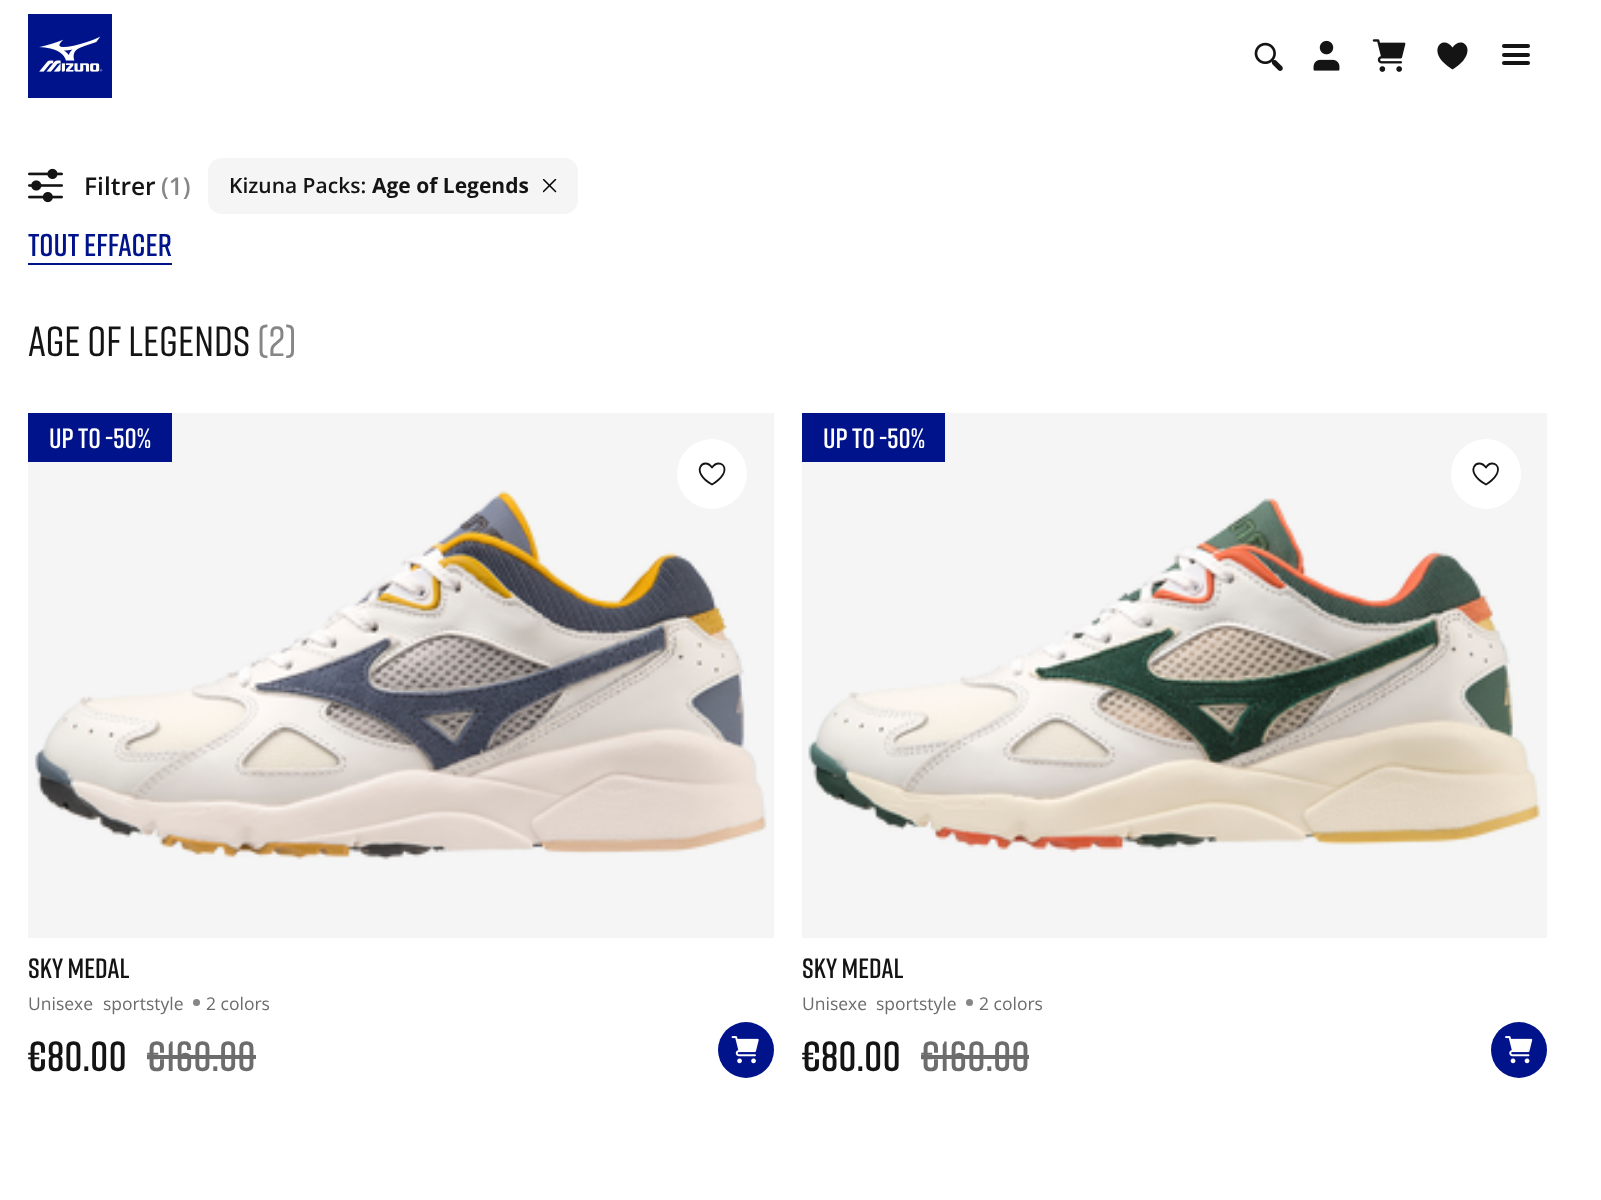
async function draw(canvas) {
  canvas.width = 1601
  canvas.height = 1200
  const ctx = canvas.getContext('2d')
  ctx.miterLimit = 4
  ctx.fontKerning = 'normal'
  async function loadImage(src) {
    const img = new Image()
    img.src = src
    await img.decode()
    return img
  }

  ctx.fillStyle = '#fff'
  ctx.fillRect(0, 0, 1601, 1200)
  ctx.drawImage(await loadImage('image0.png'), 28, 14, 84, 84)
  ctx.drawImage(await loadImage('image1.png'), 1254, 42, 29, 29)
  ctx.drawImage(await loadImage('image2.png'), 1313, 40, 27, 31)
  ctx.drawImage(await loadImage('image3.png'), 1372, 39, 34, 33)
  ctx.fillStyle = '#141414'
  ctx.beginPath()
  ctx.moveTo(1452.5, 69.5)
  ctx.bezierCurveTo(1456.5, 67, 1460, 64, 1463, 61)
  ctx.bezierCurveTo(1475, 46.5, 1460.5, 36, 1452.5, 47.5)
  ctx.bezierCurveTo(1444.5, 36, 1430, 46.5, 1442, 61)
  ctx.bezierCurveTo(1445, 64, 1448.5, 67, 1452.5, 69.5)
  ctx.closePath()
  ctx.fill('evenodd')
  ctx.beginPath()
  ctx.roundRect(1502, 44, 28, 4, 2)
  ctx.fill()
  ctx.beginPath()
  ctx.roundRect(1502, 53, 28, 4, 2)
  ctx.fill()
  ctx.beginPath()
  ctx.roundRect(1502, 61, 28, 4, 2)
  ctx.fill()
  ctx.drawImage(await loadImage('image4.png'), 28, 168, 35, 35)
  ctx.font = '600 24.5px Open Sans'
  ctx.fillText('Filtrer', 84, 195)
  ctx.fillStyle = '#868686'
  ctx.fillText('(1)', 161, 195)
  ctx.fillStyle = '#f5f5f5'
  ctx.beginPath()
  ctx.roundRect(208, 158, 370, 56, 14)
  ctx.fill()
  ctx.font = '600 21px Open Sans'
  ctx.fillStyle = '#141414'
  ctx.fillText('Kizuna Packs:', 229, 193)
  ctx.font = 'bold 21px Open Sans'
  ctx.fillText('Age of Legends', 372, 193)
  ctx.save()
  ctx.beginPath()
  ctx.rect(543, 179, 14, 14)
  ctx.clip()
  ctx.beginPath()
  ctx.moveTo(543.5, 191.5)
  ctx.lineTo(555.5, 179.5)
  ctx.moveTo(543.5, 179.5)
  ctx.lineTo(555.5, 191.5)
  ctx.strokeStyle = '#000'
  ctx.lineWidth = 1.5
  ctx.lineCap = 'round'
  ctx.stroke()
  ctx.restore()
  ctx.font = '600 31.5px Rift'
  ctx.fillStyle = '#00138a'
  ctx.fillText('TOUT EFFACER', 28, 256)
  ctx.fillRect(28, 263, 144, 2)
  ctx.font = '500 42px Rift'
  ctx.fillStyle = '#141414'
  ctx.fillText('Age of Legends', 28, 356)
  ctx.fillStyle = '#868686'
  ctx.fillText('(2)', 257, 356)
  ctx.fillStyle = '#f5f5f5'
  ctx.fillRect(28, 413, 746, 525)
  ctx.fillStyle = '#00138a'
  ctx.fillRect(28, 413, 144, 49)
  ctx.font = '600 28px Rift'
  ctx.fillStyle = '#fff'
  ctx.fillText('UP TO -50%', 49, 448)
  ctx.drawImage(await loadImage('image5.png'), 34, 490, 733, 370)
  ctx.beginPath()
  ctx.arc(712, 474, 35, 0, 2 * Math.PI)
  ctx.fill()
  ctx.beginPath()
  ctx.moveTo(724.5, 469.5)
  ctx.bezierCurveTo(724.5, 477.5, 712, 484.5, 712, 484.5)
  ctx.bezierCurveTo(689, 471.5, 704, 456, 712, 467.5)
  ctx.bezierCurveTo(712, 467.5, 715, 463.5, 718.5, 463.5)
  ctx.bezierCurveTo(722, 463.5, 724.5, 466, 724.5, 469.5)
  ctx.closePath()
  ctx.strokeStyle = '#141414'
  ctx.lineWidth = 1.8
  ctx.lineCap = 'round'
  ctx.lineJoin = 'round'
  ctx.stroke()
  ctx.fillStyle = '#141414'
  ctx.fillText('SKY MEDAL', 28, 978)
  ctx.font = '17.5px Open Sans'
  ctx.fillStyle = '#6c6c6c'
  ctx.fillText('Unisexe', 28, 1010)
  ctx.fillText('sportstyle', 103, 1010)
  ctx.fillStyle = '#868686'
  ctx.beginPath()
  ctx.arc(196.5, 1002.5, 3.5, 0, 2 * Math.PI)
  ctx.fill()
  ctx.fillStyle = '#6c6c6c'
  ctx.fillText('2 colors', 206, 1010)
  ctx.font = '600 42px Rift'
  ctx.fillStyle = '#141414'
  ctx.fillText('€80.00', 28, 1071)
  ctx.fillStyle = '#6c6c6c'
  ctx.fillText('€160.00', 147, 1071)
  ctx.fillRect(147, 1055, 109, 4)
  ctx.fillStyle = '#00138a'
  ctx.beginPath()
  ctx.arc(746, 1050, 28, 0, 2 * Math.PI)
  ctx.fill()
  ctx.drawImage(await loadImage('image6.png'), 731, 1036, 28, 28)
  ctx.fillStyle = '#f5f5f5'
  ctx.fillRect(802, 413, 745, 525)
  ctx.fillStyle = '#00138a'
  ctx.fillRect(802, 413, 143, 49)
  ctx.font = '600 28px Rift'
  ctx.fillStyle = '#fff'
  ctx.fillText('UP TO -50%', 823, 448)
  ctx.drawImage(await loadImage('image7.png'), 808, 498, 733, 355)
  ctx.beginPath()
  ctx.arc(1486, 474, 35, 0, 2 * Math.PI)
  ctx.fill()
  ctx.beginPath()
  ctx.moveTo(1498, 469.5)
  ctx.bezierCurveTo(1498, 477.5, 1486, 484.5, 1486, 484.5)
  ctx.bezierCurveTo(1462.5, 471.5, 1477.5, 456, 1486, 467.5)
  ctx.bezierCurveTo(1486, 467.5, 1488.5, 463.5, 1492, 463.5)
  ctx.bezierCurveTo(1495.5, 463.5, 1498, 466, 1498, 469.5)
  ctx.closePath()
  ctx.stroke()
  ctx.fillStyle = '#141414'
  ctx.fillText('SKY MEDAL', 802, 978)
  ctx.font = '17.5px Open Sans'
  ctx.fillStyle = '#6c6c6c'
  ctx.fillText('Unisexe', 802, 1010)
  ctx.fillText('sportstyle', 876, 1010)
  ctx.fillStyle = '#868686'
  ctx.beginPath()
  ctx.arc(969.5, 1002.5, 3.5, 0, 2 * Math.PI)
  ctx.fill()
  ctx.fillStyle = '#6c6c6c'
  ctx.fillText('2 colors', 979, 1010)
  ctx.font = '600 42px Rift'
  ctx.fillStyle = '#141414'
  ctx.fillText('€80.00', 802, 1071)
  ctx.fillStyle = '#6c6c6c'
  ctx.fillText('€160.00', 921, 1071)
  ctx.fillRect(921, 1055, 108, 4)
  ctx.fillStyle = '#00138a'
  ctx.beginPath()
  ctx.arc(1519, 1050, 28, 0, 2 * Math.PI)
  ctx.fill()
  ctx.drawImage(await loadImage('image8.png'), 1505, 1036, 28, 28)
}

draw(document.querySelector('canvas'))
